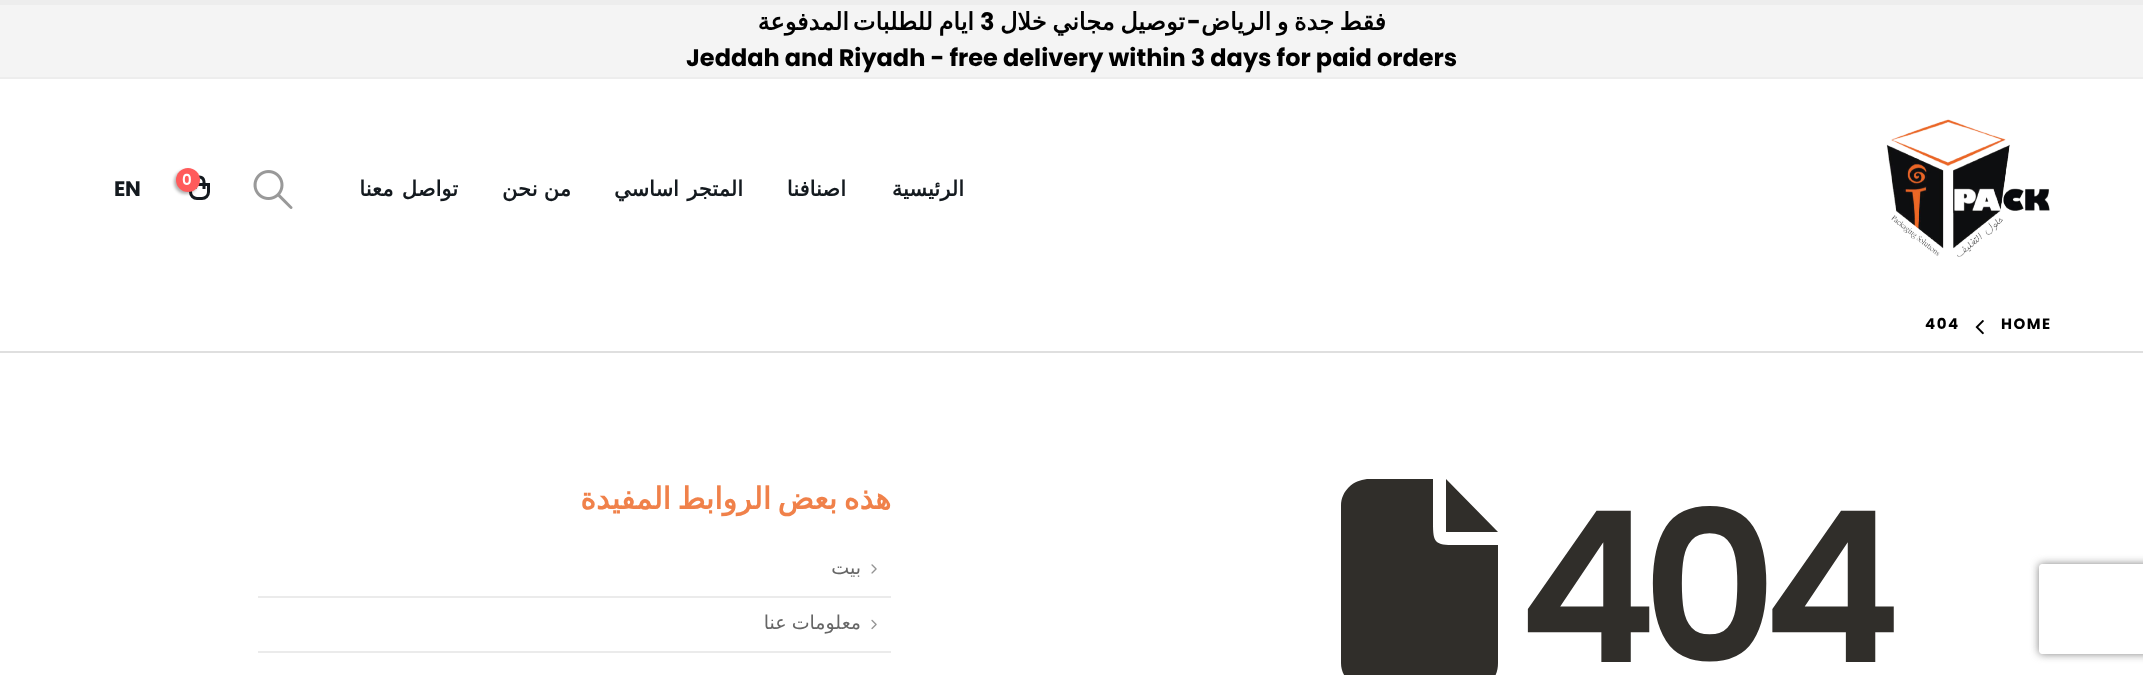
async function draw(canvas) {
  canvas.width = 2143
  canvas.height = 675
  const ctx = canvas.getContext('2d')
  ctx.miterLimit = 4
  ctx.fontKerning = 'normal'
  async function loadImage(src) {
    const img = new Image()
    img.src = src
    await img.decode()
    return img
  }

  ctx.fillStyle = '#fff'
  ctx.fillRect(0, 0, 2143, 675)
  ctx.save()
  ctx.beginPath()
  ctx.moveTo(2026, 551)
  ctx.lineTo(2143, 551)
  ctx.lineTo(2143, 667)
  ctx.lineTo(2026, 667)
  ctx.closePath()
  ctx.moveTo(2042, 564)
  ctx.lineTo(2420, 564)
  ctx.bezierCurveTo(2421.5, 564, 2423, 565.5, 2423, 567)
  ctx.lineTo(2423, 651)
  ctx.bezierCurveTo(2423, 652.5, 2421.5, 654, 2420, 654)
  ctx.lineTo(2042, 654)
  ctx.bezierCurveTo(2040.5, 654, 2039, 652.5, 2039, 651)
  ctx.lineTo(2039, 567)
  ctx.bezierCurveTo(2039, 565.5, 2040.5, 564, 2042, 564)
  ctx.closePath()
  ctx.clip('evenodd')
  ctx.fillStyle = '#808080'
  ctx.filter = 'blur(4px)'
  ctx.beginPath()
  ctx.roundRect(2039, 564, 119, 90, 3)
  ctx.fill()
  ctx.filter = 'none'
  ctx.restore()
  ctx.fillStyle = '#ededed'
  ctx.fillRect(0, 0, 2143, 5)
  ctx.fillStyle = '#f4f4f4'
  ctx.fillRect(0, 5, 2143, 72)
  ctx.fillStyle = '#ededed'
  ctx.fillRect(0, 77, 2143, 2)
  ctx.wordSpacing = '-2px'
  ctx.direction = 'rtl'
  ctx.font = 'bold 24px DejaVu Sans'
  ctx.fillStyle = '#000'
  ctx.fillText('فقط جدة و الرياض', 1386, 30)
  ctx.wordSpacing = '0px'
  ctx.font = 'bold 24px Poppins'
  ctx.fillText('-', 1201, 30)
  ctx.wordSpacing = '-2px'
  ctx.font = 'bold 24px DejaVu Sans'
  ctx.fillText('توصيل مجاني خلال', 1185, 30)
  ctx.wordSpacing = '0px'
  ctx.direction = 'ltr'
  ctx.font = 'bold 24px Poppins'
  ctx.fillText('3', 980, 30)
  ctx.wordSpacing = '-2px'
  ctx.direction = 'rtl'
  ctx.font = 'bold 24px DejaVu Sans'
  ctx.fillText('ايام للطلبات', 974, 30)
  ctx.wordSpacing = '0px'
  ctx.fillText('المدفوعة', 849, 30)
  ctx.direction = 'ltr'
  ctx.font = 'bold 24px Poppins'
  ctx.fillText('Jeddah and Riyadh - free delivery within 3 days for paid orders', 686, 66)
  ctx.drawImage(await loadImage('image0.png'), 1886, 119, 164, 138)
  ctx.letterSpacing = '-0.4px'
  ctx.direction = 'rtl'
  ctx.font = 'bold 21px DejaVu Sans'
  ctx.fillStyle = '#141a1f'
  ctx.fillText('الرئيسية', 964, 196)
  ctx.fillText('اصنافنا', 846, 196)
  ctx.wordSpacing = '2px'
  ctx.fillText('المتجر اساسي', 743, 196)
  ctx.wordSpacing = '0px'
  ctx.fillText('من نحن', 571, 196)
  ctx.wordSpacing = '2px'
  ctx.fillText('تواصل معنا', 458, 196)
  ctx.drawImage(await loadImage('image1.png'), 253, 170, 40, 39)
  ctx.beginPath()
  ctx.roundRect(190.5, 184.5, 18, 14, [0, 0, 6.5, 6.5])
  ctx.strokeStyle = '#141a1f'
  ctx.lineWidth = 3
  ctx.stroke()
  ctx.beginPath()
  ctx.moveTo(199.5, 175.5)
  ctx.bezierCurveTo(207, 175.5, 205.5, 184, 205.5, 189)
  ctx.lineTo(193.5, 189)
  ctx.bezierCurveTo(193.5, 184, 192, 175.5, 199.5, 175.5)
  ctx.closePath()
  ctx.moveTo(199.5, 178.5)
  ctx.bezierCurveTo(201, 178.5, 202.5, 180, 202.5, 181.5)
  ctx.lineTo(202.5, 189)
  ctx.lineTo(196.5, 189)
  ctx.lineTo(196.5, 181.5)
  ctx.bezierCurveTo(196.5, 180, 198, 178.5, 199.5, 178.5)
  ctx.closePath()
  ctx.fill('evenodd')
  ctx.fillStyle = '#0000004d'
  ctx.filter = 'blur(1.5px)'
  ctx.beginPath()
  ctx.roundRect(174, 170, 24, 24, 12)
  ctx.fill()
  ctx.filter = 'none'
  ctx.fillStyle = '#ff5b5b'
  ctx.beginPath()
  ctx.arc(188, 180, 12, 0, 2 * Math.PI)
  ctx.fill()
  ctx.letterSpacing = '0px'
  ctx.wordSpacing = '0px'
  ctx.direction = 'ltr'
  ctx.font = '600 15px Poppins'
  ctx.fillStyle = '#fff'
  ctx.fillText('0', 182, 185)
  ctx.letterSpacing = '-0.4px'
  ctx.font = 'bold 21px Poppins'
  ctx.fillStyle = '#141a1f'
  ctx.fillText('EN', 114, 196)
  ctx.fillStyle = '#dfdfdf'
  ctx.fillRect(0, 351, 2143, 2)
  ctx.letterSpacing = '1.5px'
  ctx.font = 'bold 15px Poppins'
  ctx.fillStyle = '#000'
  ctx.fillText('HOME', 2001, 329)
  ctx.drawImage(await loadImage('image2.png'), 1975, 320, 9, 15)
  ctx.fillText('404', 1925, 329)
  ctx.letterSpacing = '-15px'
  ctx.font = '600 210px Poppins'
  ctx.fillStyle = '#302e2a'
  ctx.fillText('404', 1518, 662)
  ctx.beginPath()
  ctx.moveTo(1341, 506)
  ctx.bezierCurveTo(1341, 498, 1344, 492, 1349, 487)
  ctx.bezierCurveTo(1354, 482, 1360, 480, 1367, 479)
  ctx.lineTo(1433, 479)
  ctx.lineTo(1433, 523)
  ctx.bezierCurveTo(1433, 543, 1435, 545, 1455, 545)
  ctx.lineTo(1498, 545)
  ctx.lineTo(1498, 663)
  ctx.bezierCurveTo(1498, 670, 1496, 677, 1491, 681)
  ctx.bezierCurveTo(1486, 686, 1480, 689, 1472, 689)
  ctx.lineTo(1367, 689)
  ctx.bezierCurveTo(1360, 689, 1354, 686, 1349, 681)
  ctx.bezierCurveTo(1344, 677, 1341, 670, 1341, 663)
  ctx.closePath()
  ctx.moveTo(1498, 532)
  ctx.lineTo(1446, 532)
  ctx.lineTo(1446, 479)
  ctx.closePath()
  ctx.fill()
  ctx.letterSpacing = '0px'
  ctx.wordSpacing = '-3px'
  ctx.direction = 'rtl'
  ctx.font = 'bold 30px DejaVu Sans'
  ctx.fillStyle = '#f0814a'
  ctx.fillText('هذه بعض الروابط المفيدة', 891, 509)
  ctx.fillStyle = '#ebebeb'
  ctx.fillRect(258, 596, 633, 2)
  ctx.drawImage(await loadImage('image3.png'), 871, 564, 6, 10)
  ctx.wordSpacing = '0px'
  ctx.font = '19px DejaVu Sans'
  ctx.fillStyle = '#666'
  ctx.fillText('بيت', 861, 574)
  ctx.fillStyle = '#ebebeb'
  ctx.fillRect(258, 651, 633, 2)
  ctx.drawImage(await loadImage('image4.png'), 871, 619, 6, 11)
  ctx.wordSpacing = '-1px'
  ctx.fillStyle = '#666'
  ctx.fillText('معلومات عنا', 861, 629)
}

draw(document.querySelector('canvas'))
